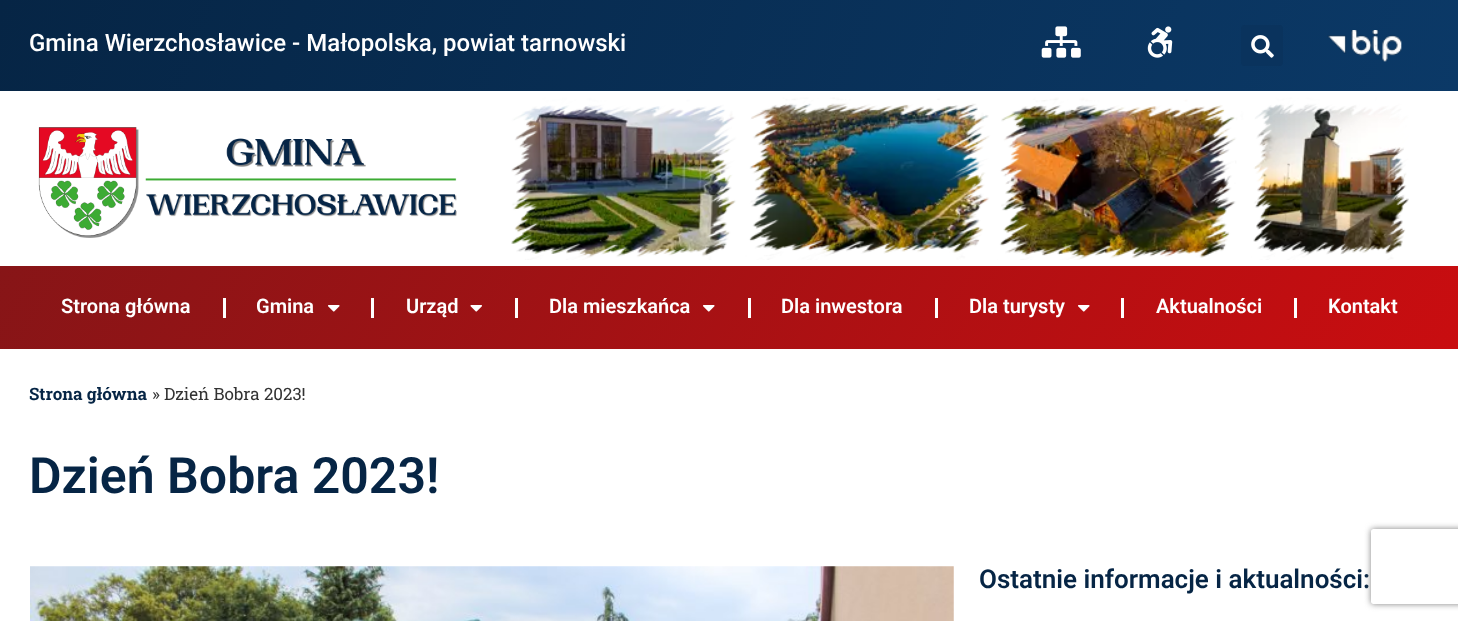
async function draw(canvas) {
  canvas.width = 1458
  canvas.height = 621
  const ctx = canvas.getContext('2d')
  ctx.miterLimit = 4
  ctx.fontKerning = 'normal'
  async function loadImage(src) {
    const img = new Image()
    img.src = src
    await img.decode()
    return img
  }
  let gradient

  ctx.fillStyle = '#fff'
  ctx.fillRect(0, 0, 1458, 621)
  gradient = ctx.createLinearGradient(71, -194, 1388, 285)
  gradient.addColorStop(0, '#062545')
  gradient.addColorStop(1, '#0b3967')
  ctx.fillStyle = gradient
  ctx.fillRect(0, 0, 1458, 91)
  ctx.font = '500 24px Roboto'
  ctx.fillStyle = '#fff'
  ctx.fillText('Gmina Wierzchosławice - Małopolska, powiat tarnowski', 29, 51)
  ctx.drawImage(await loadImage('image0.png'), 1041, 26, 40, 32)
  ctx.drawImage(await loadImage('image1.png'), 1147, 26, 26, 32)
  ctx.fillStyle = '#0a335d'
  ctx.beginPath()
  ctx.roundRect(1241, 25, 42, 41, 4)
  ctx.fill()
  ctx.drawImage(await loadImage('image2.png'), 1251, 35, 23, 23)
  ctx.drawImage(await loadImage('image3.png'), 1327, 30, 75, 32)
  ctx.drawImage(await loadImage('image4.png'), 38, 127, 419, 111)
  ctx.drawImage(await loadImage('image5.png'), 511, 97, 898, 163)
  gradient = ctx.createLinearGradient(164, -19, 1294, 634)
  gradient.addColorStop(0, '#871517')
  gradient.addColorStop(1, '#c90d10')
  ctx.fillStyle = gradient
  ctx.fillRect(0, 266, 1458, 83)
  ctx.font = '600 20px Roboto'
  ctx.fillStyle = '#fff'
  ctx.fillText('Strona główna', 61, 313)
  ctx.fillRect(223, 298, 3, 20)
  ctx.fillText('Gmina', 256, 313)
  ctx.drawImage(await loadImage('image6.png'), 328, 305, 12, 7)
  ctx.fillRect(371, 298, 3, 20)
  ctx.fillText('Urząd', 406, 313)
  ctx.drawImage(await loadImage('image7.png'), 470, 305, 12, 7)
  ctx.fillRect(515, 298, 3, 20)
  ctx.fillText('Dla mieszkańca', 549, 313)
  ctx.drawImage(await loadImage('image8.png'), 703, 305, 12, 7)
  ctx.fillRect(748, 298, 3, 20)
  ctx.fillText('Dla inwestora', 781, 313)
  ctx.fillRect(935, 298, 3, 20)
  ctx.fillText('Dla turysty', 969, 313)
  ctx.drawImage(await loadImage('image9.png'), 1078, 305, 12, 7)
  ctx.fillRect(1121, 298, 3, 20)
  ctx.fillText('Aktualności', 1156, 313)
  ctx.fillRect(1294, 298, 3, 20)
  ctx.fillText('Kontakt', 1328, 313)
  ctx.font = 'bold 17px Roboto Slab'
  ctx.fillStyle = '#062545'
  ctx.fillText('Strona główna', 29, 400)
  ctx.font = '17px Roboto Slab'
  ctx.fillStyle = '#333'
  ctx.fillText('» Dzień Bobra 2023!', 152, 400)
  ctx.font = '600 50px Roboto'
  ctx.fillStyle = '#062545'
  ctx.fillText('Dzień Bobra 2023!', 29, 493)
  ctx.drawImage(await loadImage('image10.png'), 30, 566, 924, 55)
  ctx.font = '600 26px Roboto'
  ctx.fillText('Ostatnie informacje i aktualności:', 979, 588)
  ctx.save()
  ctx.beginPath()
  ctx.moveTo(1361, 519)
  ctx.lineTo(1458, 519)
  ctx.lineTo(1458, 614)
  ctx.lineTo(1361, 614)
  ctx.closePath()
  ctx.moveTo(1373.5, 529)
  ctx.lineTo(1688.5, 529)
  ctx.bezierCurveTo(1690, 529, 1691, 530, 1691, 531.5)
  ctx.lineTo(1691, 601.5)
  ctx.bezierCurveTo(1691, 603, 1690, 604, 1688.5, 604)
  ctx.lineTo(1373.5, 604)
  ctx.bezierCurveTo(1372, 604, 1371, 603, 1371, 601.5)
  ctx.lineTo(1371, 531.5)
  ctx.bezierCurveTo(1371, 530, 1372, 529, 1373.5, 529)
  ctx.closePath()
  ctx.clip('evenodd')
  ctx.fillStyle = '#808080'
  ctx.filter = 'blur(3px)'
  ctx.beginPath()
  ctx.roundRect(1371, 529, 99, 75, 2.5)
  ctx.fill()
  ctx.filter = 'none'
  ctx.restore()
}

draw(document.querySelector('canvas'))
